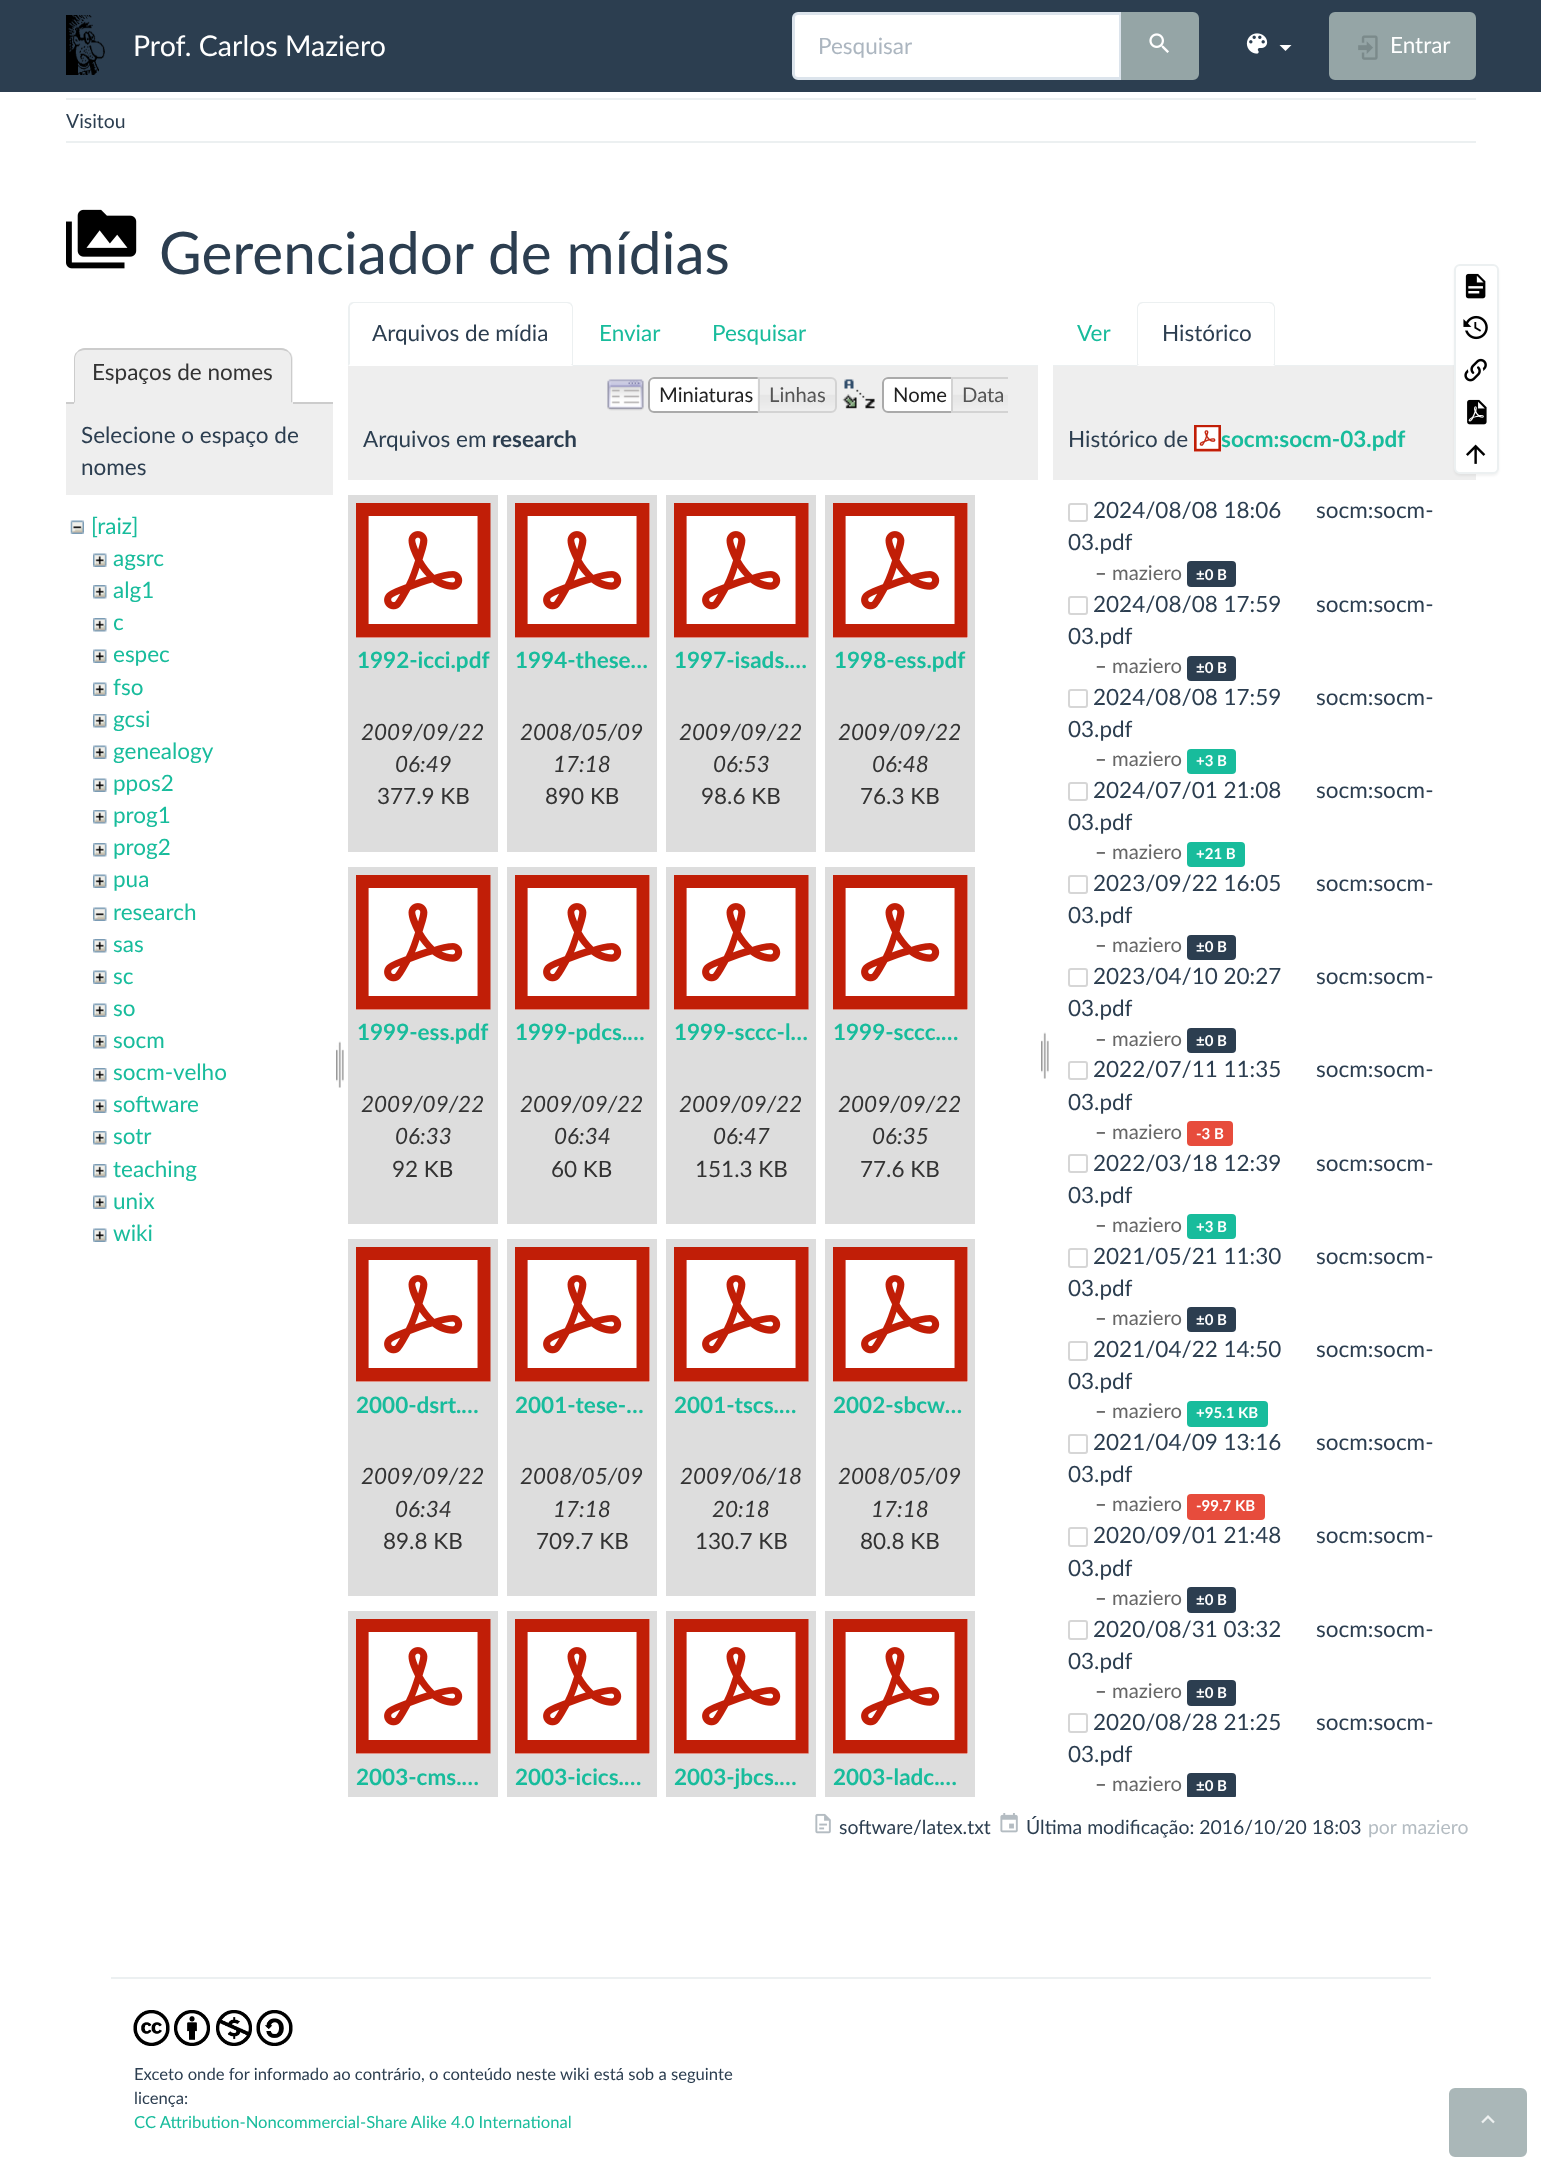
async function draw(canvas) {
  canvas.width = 1541
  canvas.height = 2171
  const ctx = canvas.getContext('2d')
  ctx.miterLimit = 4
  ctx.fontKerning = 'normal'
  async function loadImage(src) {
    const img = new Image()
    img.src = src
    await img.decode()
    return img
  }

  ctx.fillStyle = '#fff'
  ctx.fillRect(0, 0, 1541, 2171)
  ctx.fillStyle = '#2c3e50'
  ctx.fillRect(0, 0, 1541, 92)
  ctx.drawImage(await loadImage('image0.png'), 66, 15, 39, 60)
  ctx.font = '28.5px Lato'
  ctx.fillStyle = '#fff'
  ctx.fillText('Prof. Carlos Maziero', 133, 56)
  ctx.beginPath()
  ctx.roundRect(793.5, 13.5, 327, 65, [4.5, 0, 0, 4.5])
  ctx.fill()
  ctx.strokeStyle = '#dce4ec'
  ctx.lineWidth = 3
  ctx.stroke()
  ctx.font = '22.5px Lato'
  ctx.fillStyle = '#acb6c0'
  ctx.fillText('Pesquisar', 818, 54)
  ctx.fillStyle = '#95a5a6'
  ctx.beginPath()
  ctx.roundRect(1122.5, 13.5, 75, 65, [0, 4.5, 4.5, 0])
  ctx.fill()
  ctx.strokeStyle = '#95a5a6'
  ctx.stroke()
  ctx.drawImage(await loadImage('image1.png'), 1149, 33, 20, 20)
  ctx.drawImage(await loadImage('image2.png'), 1246, 33, 22, 21)
  ctx.fillStyle = '#fff'
  ctx.beginPath()
  ctx.moveTo(1279.5, 45)
  ctx.lineTo(1291.5, 45)
  ctx.lineTo(1285.5, 51)
  ctx.closePath()
  ctx.fill()
  ctx.fillStyle = '#95a5a6'
  ctx.beginPath()
  ctx.roundRect(1330.5, 13.5, 144, 65, 4.5)
  ctx.fill()
  ctx.stroke()
  ctx.drawImage(await loadImage('image3.png'), 1358, 35, 20, 25)
  ctx.fillStyle = '#fff'
  ctx.fillText('Entrar', 1390, 53)
  ctx.fillStyle = '#ecf0f1'
  ctx.fillRect(66, 98, 1410, 2)
  ctx.font = '19.4px Lato'
  ctx.fillStyle = '#2c3e50'
  ctx.fillText('Visitou', 66, 128)
  ctx.fillStyle = '#ecf0f1'
  ctx.fillRect(66, 141, 1410, 2)
  ctx.drawImage(await loadImage('image4.png'), 66, 209, 71, 60)
  ctx.font = '58.5px Lato'
  ctx.fillStyle = '#2c3e50'
  ctx.fillText('Gerenciador de mídias', 159, 274)
  ctx.fillStyle = '#ccc'
  ctx.fillRect(66, 402, 267, 2)
  ctx.fillStyle = '#eee'
  ctx.beginPath()
  ctx.roundRect(74, 348, 219, 56, [12, 12, 0, 0])
  ctx.fill()
  ctx.fillStyle = '#ccc'
  ctx.beginPath()
  ctx.moveTo(85, 348)
  ctx.bezierCurveTo(82, 348, 79, 349, 77, 352)
  ctx.lineTo(78, 352)
  ctx.bezierCurveTo(80, 351, 82, 350, 85, 350)
  ctx.lineTo(281, 350)
  ctx.bezierCurveTo(284, 350, 286, 351, 288, 352)
  ctx.lineTo(289, 352)
  ctx.bezierCurveTo(287, 349, 284, 348, 281, 348)
  ctx.closePath()
  ctx.fill()
  ctx.beginPath()
  ctx.moveTo(289, 352)
  ctx.bezierCurveTo(291, 353, 292, 356, 292, 359)
  ctx.lineTo(292, 403)
  ctx.lineTo(291, 402)
  ctx.lineTo(291, 359)
  ctx.bezierCurveTo(291, 356, 290, 354, 288, 352)
  ctx.closePath()
  ctx.fill()
  ctx.fillStyle = '#eee'
  ctx.beginPath()
  ctx.moveTo(74, 404)
  ctx.lineTo(75, 402)
  ctx.lineTo(291, 402)
  ctx.lineTo(292, 403)
  ctx.lineTo(292, 404)
  ctx.closePath()
  ctx.fill()
  ctx.fillStyle = '#ccc'
  ctx.beginPath()
  ctx.moveTo(77, 352)
  ctx.bezierCurveTo(75, 353, 74, 356, 74, 359)
  ctx.lineTo(74, 403)
  ctx.lineTo(75, 402)
  ctx.lineTo(75, 359)
  ctx.bezierCurveTo(75, 356, 76, 354, 78, 352)
  ctx.closePath()
  ctx.fill()
  ctx.font = '22.5px Lato'
  ctx.fillStyle = '#333'
  ctx.fillText('Espaços de nomes', 92, 380)
  ctx.fillStyle = '#eee'
  ctx.fillRect(66, 404, 267, 91)
  ctx.fillStyle = '#2c3e50'
  ctx.fillText('Selecione o espaço de', 81, 443)
  ctx.fillText('nomes', 81, 475)
  ctx.drawImage(await loadImage('image5.png'), 70, 520, 14, 14)
  ctx.fillStyle = '#18bc9c'
  ctx.fillText('[raiz]', 91, 534)
  ctx.drawImage(await loadImage('image6.png'), 93, 553, 14, 14)
  ctx.fillText('agsrc', 113, 566)
  ctx.drawImage(await loadImage('image7.png'), 93, 585, 14, 14)
  ctx.fillText('alg1', 113, 598)
  ctx.drawImage(await loadImage('image7.png'), 93, 618, 14, 14)
  ctx.fillText('c', 113, 630)
  ctx.drawImage(await loadImage('image6.png'), 93, 649, 14, 14)
  ctx.fillText('espec', 113, 662)
  ctx.drawImage(await loadImage('image6.png'), 93, 682, 14, 14)
  ctx.fillText('fso', 113, 695)
  ctx.drawImage(await loadImage('image7.png'), 93, 714, 14, 14)
  ctx.fillText('gcsi', 113, 727)
  ctx.drawImage(await loadImage('image6.png'), 93, 745, 14, 14)
  ctx.fillText('genealogy', 113, 759)
  ctx.drawImage(await loadImage('image6.png'), 93, 778, 14, 14)
  ctx.fillText('ppos2', 113, 791)
  ctx.drawImage(await loadImage('image7.png'), 93, 810, 14, 14)
  ctx.fillText('prog1', 113, 823)
  ctx.drawImage(await loadImage('image7.png'), 93, 843, 14, 14)
  ctx.fillText('prog2', 113, 855)
  ctx.drawImage(await loadImage('image6.png'), 93, 874, 14, 14)
  ctx.fillText('pua', 113, 887)
  ctx.drawImage(await loadImage('image8.png'), 93, 907, 14, 14)
  ctx.fillText('research', 113, 920)
  ctx.drawImage(await loadImage('image7.png'), 93, 939, 14, 14)
  ctx.fillText('sas', 113, 952)
  ctx.drawImage(await loadImage('image6.png'), 93, 970, 14, 14)
  ctx.fillText('sc', 113, 984)
  ctx.drawImage(await loadImage('image6.png'), 93, 1003, 14, 14)
  ctx.fillText('so', 113, 1016)
  ctx.drawImage(await loadImage('image7.png'), 93, 1035, 14, 14)
  ctx.fillText('socm', 113, 1048)
  ctx.drawImage(await loadImage('image7.png'), 93, 1068, 14, 14)
  ctx.fillText('socm-velho', 113, 1080)
  ctx.drawImage(await loadImage('image6.png'), 93, 1099, 14, 14)
  ctx.fillText('software', 113, 1112)
  ctx.drawImage(await loadImage('image7.png'), 93, 1131, 14, 14)
  ctx.fillText('sotr', 113, 1144)
  ctx.drawImage(await loadImage('image7.png'), 93, 1164, 14, 14)
  ctx.fillText('teaching', 113, 1177)
  ctx.drawImage(await loadImage('image6.png'), 93, 1195, 14, 14)
  ctx.fillText('unix', 113, 1209)
  ctx.drawImage(await loadImage('image6.png'), 93, 1228, 14, 14)
  ctx.fillText('wiki', 113, 1241)
  ctx.drawImage(await loadImage('image9.png'), 336, 1041, 8, 47)
  ctx.fillStyle = '#ecf0f1'
  ctx.fillRect(573, 365, 465, 1)
  ctx.beginPath()
  ctx.moveTo(354, 302)
  ctx.bezierCurveTo(353, 302, 351, 302, 350, 303)
  ctx.lineTo(351, 305)
  ctx.bezierCurveTo(352, 304, 353, 303, 354, 303)
  ctx.lineTo(567, 303)
  ctx.lineTo(570, 304)
  ctx.lineTo(571, 303)
  ctx.bezierCurveTo(570, 302, 568, 302, 567, 302)
  ctx.closePath()
  ctx.fill()
  ctx.beginPath()
  ctx.moveTo(571, 303)
  ctx.bezierCurveTo(572, 304, 573, 306, 573, 308)
  ctx.lineTo(573, 366)
  ctx.lineTo(571, 364)
  ctx.lineTo(572, 364)
  ctx.lineTo(572, 307)
  ctx.lineTo(570, 304)
  ctx.closePath()
  ctx.fill()
  ctx.beginPath()
  ctx.moveTo(348, 366)
  ctx.lineTo(350, 364)
  ctx.lineTo(350, 308)
  ctx.bezierCurveTo(350, 307, 350, 305, 351, 305)
  ctx.lineTo(350, 303)
  ctx.bezierCurveTo(349, 304, 348, 306, 348, 308)
  ctx.closePath()
  ctx.fill()
  ctx.fillStyle = '#2c3e50'
  ctx.fillText('Arquivos de mídia', 372, 341)
  ctx.fillStyle = '#18bc9c'
  ctx.fillText('Enviar', 599, 341)
  ctx.fillText('Pesquisar', 712, 341)
  ctx.fillStyle = '#eee'
  ctx.fillRect(348, 366, 690, 114)
  ctx.drawImage(await loadImage('image10.png'), 607, 379, 37, 32)
  ctx.fillStyle = '#fff'
  ctx.beginPath()
  ctx.roundRect(648, 377, 117, 36, [6, 0, 0, 6])
  ctx.fill()
  ctx.drawImage(await loadImage('image11.png'), 648, 377, 4, 4)
  ctx.beginPath()
  ctx.roundRect(649, 378, 115, 34, [5, 0, 0, 5])
  ctx.strokeStyle = '#aaa'
  ctx.lineWidth = 2
  ctx.stroke()
  ctx.font = '20.25px Lato'
  ctx.fillStyle = '#212121'
  ctx.fillText('Miniaturas', 659, 402)
  ctx.drawImage(await loadImage('image12.png'), 757, 377, 80, 35)
  ctx.beginPath()
  ctx.roundRect(759, 378, 77, 34, [0, 5, 5, 0])
  ctx.strokeStyle = '#d3d3d3'
  ctx.stroke()
  ctx.fillStyle = '#555'
  ctx.fillText('Linhas', 769, 402)
  ctx.drawImage(await loadImage('image13.png'), 842, 379, 33, 30)
  ctx.fillStyle = '#fff'
  ctx.beginPath()
  ctx.roundRect(882, 377, 77, 36, [6, 0, 0, 6])
  ctx.fill()
  ctx.drawImage(await loadImage('image11.png'), 882, 377, 4, 4)
  ctx.beginPath()
  ctx.roundRect(883, 378, 75, 34, [5, 0, 0, 5])
  ctx.strokeStyle = '#aaa'
  ctx.stroke()
  ctx.fillStyle = '#212121'
  ctx.fillText('Nome', 893, 402)
  ctx.drawImage(await loadImage('image14.png'), 953, 379, 55, 32)
  ctx.save()
  ctx.beginPath()
  ctx.rect(596, 377, 412, 36)
  ctx.clip()
  ctx.beginPath()
  ctx.roundRect(952, 378, 63, 34, [0, 5, 5, 0])
  ctx.strokeStyle = '#d3d3d3'
  ctx.stroke()
  ctx.restore()
  ctx.fillStyle = '#555'
  ctx.fillText('Data', 962, 402)
  ctx.font = '22.5px Lato'
  ctx.fillStyle = '#2c3e50'
  ctx.fillText('Arquivos em', 363, 447)
  ctx.font = 'bold 22.5px Lato'
  ctx.fillText('research', 492, 447)
  ctx.fillStyle = '#ddd'
  ctx.fillRect(348, 495, 150, 357)
  ctx.drawImage(await loadImage('image15.png'), 356, 503, 135, 135)
  ctx.fillStyle = '#18bc9c'
  ctx.fillText('1992-icci.pdf', 357, 668)
  ctx.font = 'italic 22.5px Lato'
  ctx.fillStyle = '#333'
  ctx.fillText('2009/09/22', 361, 740)
  ctx.fillText('06:49', 395, 772)
  ctx.font = '22.5px Lato'
  ctx.fillText('377.9 KB', 377, 804)
  ctx.fillStyle = '#ddd'
  ctx.fillRect(507, 495, 150, 357)
  ctx.drawImage(await loadImage('image16.png'), 515, 503, 135, 135)
  ctx.font = 'bold 22.5px Lato'
  ctx.fillStyle = '#18bc9c'
  ctx.fillText('1994-these…', 515, 668)
  ctx.font = 'italic 22.5px Lato'
  ctx.fillStyle = '#333'
  ctx.fillText('2008/05/09', 520, 740)
  ctx.fillText('17:18', 553, 772)
  ctx.font = '22.5px Lato'
  ctx.fillText('890 KB', 545, 804)
  ctx.fillStyle = '#ddd'
  ctx.fillRect(666, 495, 150, 357)
  ctx.drawImage(await loadImage('image15.png'), 674, 503, 135, 135)
  ctx.font = 'bold 22.5px Lato'
  ctx.fillStyle = '#18bc9c'
  ctx.fillText('1997-isads.…', 674, 668)
  ctx.font = 'italic 22.5px Lato'
  ctx.fillStyle = '#333'
  ctx.fillText('2009/09/22', 679, 740)
  ctx.fillText('06:53', 713, 772)
  ctx.font = '22.5px Lato'
  ctx.fillText('98.6 KB', 701, 804)
  ctx.fillStyle = '#ddd'
  ctx.fillRect(825, 495, 150, 357)
  ctx.drawImage(await loadImage('image16.png'), 833, 503, 135, 135)
  ctx.font = 'bold 22.5px Lato'
  ctx.fillStyle = '#18bc9c'
  ctx.fillText('1998-ess.pdf', 834, 668)
  ctx.font = 'italic 22.5px Lato'
  ctx.fillStyle = '#333'
  ctx.fillText('2009/09/22', 838, 740)
  ctx.fillText('06:48', 872, 772)
  ctx.font = '22.5px Lato'
  ctx.fillText('76.3 KB', 860, 804)
  ctx.fillStyle = '#ddd'
  ctx.fillRect(348, 867, 150, 357)
  ctx.drawImage(await loadImage('image15.png'), 356, 875, 135, 135)
  ctx.font = 'bold 22.5px Lato'
  ctx.fillStyle = '#18bc9c'
  ctx.fillText('1999-ess.pdf', 357, 1040)
  ctx.font = 'italic 22.5px Lato'
  ctx.fillStyle = '#333'
  ctx.fillText('2009/09/22', 361, 1112)
  ctx.fillText('06:33', 395, 1144)
  ctx.font = '22.5px Lato'
  ctx.fillText('92 KB', 392, 1177)
  ctx.fillStyle = '#ddd'
  ctx.fillRect(507, 867, 150, 357)
  ctx.drawImage(await loadImage('image16.png'), 515, 875, 135, 135)
  ctx.font = 'bold 22.5px Lato'
  ctx.fillStyle = '#18bc9c'
  ctx.fillText('1999-pdcs.…', 515, 1040)
  ctx.font = 'italic 22.5px Lato'
  ctx.fillStyle = '#333'
  ctx.fillText('2009/09/22', 520, 1112)
  ctx.fillText('06:34', 554, 1144)
  ctx.font = '22.5px Lato'
  ctx.fillText('60 KB', 551, 1177)
  ctx.fillStyle = '#ddd'
  ctx.fillRect(666, 867, 150, 357)
  ctx.drawImage(await loadImage('image15.png'), 674, 875, 135, 135)
  ctx.font = 'bold 22.5px Lato'
  ctx.fillStyle = '#18bc9c'
  ctx.fillText('1999-sccc-l…', 674, 1040)
  ctx.font = 'italic 22.5px Lato'
  ctx.fillStyle = '#333'
  ctx.fillText('2009/09/22', 679, 1112)
  ctx.fillText('06:47', 713, 1144)
  ctx.font = '22.5px Lato'
  ctx.fillText('151.3 KB', 695, 1177)
  ctx.fillStyle = '#ddd'
  ctx.fillRect(825, 867, 150, 357)
  ctx.drawImage(await loadImage('image16.png'), 833, 875, 135, 135)
  ctx.font = 'bold 22.5px Lato'
  ctx.fillStyle = '#18bc9c'
  ctx.fillText('1999-sccc.…', 833, 1040)
  ctx.font = 'italic 22.5px Lato'
  ctx.fillStyle = '#333'
  ctx.fillText('2009/09/22', 838, 1112)
  ctx.fillText('06:35', 872, 1144)
  ctx.font = '22.5px Lato'
  ctx.fillText('77.6 KB', 860, 1177)
  ctx.fillStyle = '#ddd'
  ctx.fillRect(348, 1239, 150, 357)
  ctx.drawImage(await loadImage('image15.png'), 356, 1247, 135, 135)
  ctx.font = 'bold 22.5px Lato'
  ctx.fillStyle = '#18bc9c'
  ctx.fillText('2000-dsrt.…', 356, 1413)
  ctx.font = 'italic 22.5px Lato'
  ctx.fillStyle = '#333'
  ctx.fillText('2009/09/22', 361, 1484)
  ctx.fillText('06:34', 395, 1517)
  ctx.font = '22.5px Lato'
  ctx.fillText('89.8 KB', 383, 1549)
  ctx.fillStyle = '#ddd'
  ctx.fillRect(507, 1239, 150, 357)
  ctx.drawImage(await loadImage('image16.png'), 515, 1247, 135, 135)
  ctx.font = 'bold 22.5px Lato'
  ctx.fillStyle = '#18bc9c'
  ctx.fillText('2001-tese-…', 515, 1413)
  ctx.font = 'italic 22.5px Lato'
  ctx.fillStyle = '#333'
  ctx.fillText('2008/05/09', 520, 1484)
  ctx.fillText('17:18', 553, 1517)
  ctx.font = '22.5px Lato'
  ctx.fillText('709.7 KB', 536, 1549)
  ctx.fillStyle = '#ddd'
  ctx.fillRect(666, 1239, 150, 357)
  ctx.drawImage(await loadImage('image15.png'), 674, 1247, 135, 135)
  ctx.font = 'bold 22.5px Lato'
  ctx.fillStyle = '#18bc9c'
  ctx.fillText('2001-tscs.…', 674, 1413)
  ctx.font = 'italic 22.5px Lato'
  ctx.fillStyle = '#333'
  ctx.fillText('2009/06/18', 680, 1484)
  ctx.fillText('20:18', 712, 1517)
  ctx.font = '22.5px Lato'
  ctx.fillText('130.7 KB', 695, 1549)
  ctx.fillStyle = '#ddd'
  ctx.fillRect(825, 1239, 150, 357)
  ctx.drawImage(await loadImage('image16.png'), 833, 1247, 135, 135)
  ctx.font = 'bold 22.5px Lato'
  ctx.fillStyle = '#18bc9c'
  ctx.fillText('2002-sbcw…', 833, 1413)
  ctx.font = 'italic 22.5px Lato'
  ctx.fillStyle = '#333'
  ctx.fillText('2008/05/09', 838, 1484)
  ctx.fillText('17:18', 871, 1517)
  ctx.font = '22.5px Lato'
  ctx.fillText('80.8 KB', 860, 1549)
  ctx.fillStyle = '#ddd'
  ctx.fillRect(348, 1611, 150, 186)
  ctx.drawImage(await loadImage('image15.png'), 356, 1619, 135, 135)
  ctx.font = 'bold 22.5px Lato'
  ctx.fillStyle = '#18bc9c'
  ctx.fillText('2003-cms.…', 356, 1785)
  ctx.fillStyle = '#ddd'
  ctx.fillRect(507, 1611, 150, 186)
  ctx.drawImage(await loadImage('image16.png'), 515, 1619, 135, 135)
  ctx.fillStyle = '#18bc9c'
  ctx.fillText('2003-icics.…', 515, 1785)
  ctx.fillStyle = '#ddd'
  ctx.fillRect(666, 1611, 150, 186)
  ctx.drawImage(await loadImage('image15.png'), 674, 1619, 135, 135)
  ctx.fillStyle = '#18bc9c'
  ctx.fillText('2003-jbcs.…', 674, 1785)
  ctx.fillStyle = '#ddd'
  ctx.fillRect(825, 1611, 150, 186)
  ctx.drawImage(await loadImage('image16.png'), 833, 1619, 135, 135)
  ctx.fillStyle = '#18bc9c'
  ctx.fillText('2003-ladc.…', 833, 1785)
  ctx.drawImage(await loadImage('image9.png'), 1041, 1032, 8, 47)
  ctx.fillStyle = '#ecf0f1'
  ctx.fillRect(1053, 365, 401, 1)
  ctx.font = '22.5px Lato'
  ctx.fillStyle = '#18bc9c'
  ctx.fillText('Ver', 1077, 341)
  ctx.fillStyle = '#fff'
  ctx.beginPath()
  ctx.roundRect(1137, 302, 138, 64, [6, 6, 0, 0])
  ctx.fill()
  ctx.fillStyle = '#ecf0f1'
  ctx.beginPath()
  ctx.moveTo(1143, 302)
  ctx.bezierCurveTo(1142, 302, 1140, 302, 1139, 303)
  ctx.lineTo(1140, 304)
  ctx.lineTo(1143, 303)
  ctx.lineTo(1269, 303)
  ctx.lineTo(1272, 304)
  ctx.lineTo(1273, 303)
  ctx.bezierCurveTo(1272, 302, 1270, 302, 1269, 302)
  ctx.closePath()
  ctx.fill()
  ctx.beginPath()
  ctx.moveTo(1273, 303)
  ctx.bezierCurveTo(1274, 304, 1275, 306, 1275, 308)
  ctx.lineTo(1275, 366)
  ctx.lineTo(1273, 364)
  ctx.lineTo(1274, 364)
  ctx.lineTo(1274, 307)
  ctx.lineTo(1272, 304)
  ctx.closePath()
  ctx.fill()
  ctx.beginPath()
  ctx.moveTo(1137, 366)
  ctx.lineTo(1139, 364)
  ctx.lineTo(1138, 364)
  ctx.lineTo(1138, 307)
  ctx.lineTo(1140, 304)
  ctx.lineTo(1139, 303)
  ctx.bezierCurveTo(1138, 304, 1137, 306, 1137, 308)
  ctx.closePath()
  ctx.fill()
  ctx.fillStyle = '#2c3e50'
  ctx.fillText('Histórico', 1162, 341)
  ctx.fillStyle = '#eee'
  ctx.fillRect(1053, 366, 423, 114)
  ctx.fillStyle = '#2c3e50'
  ctx.fillText('Histórico de', 1068, 447)
  ctx.drawImage(await loadImage('image17.png'), 1194, 425, 27, 27)
  ctx.font = 'bold 22.5px Lato'
  ctx.fillStyle = '#18bc9c'
  ctx.fillText('socm:socm-03.pdf', 1221, 447)
  ctx.beginPath()
  ctx.roundRect(1069, 504, 18, 17, 2)
  ctx.strokeStyle = '#d6d6d6'
  ctx.stroke()
  ctx.font = '22.5px Lato'
  ctx.fillStyle = '#2c3e50'
  ctx.fillText('2024/08/08 18:06', 1093, 518)
  ctx.fillText('socm:socm-', 1316, 518)
  ctx.fillText('03.pdf', 1068, 550)
  ctx.font = 'bold 20.25px Lato'
  ctx.fillStyle = '#666'
  ctx.fillText('–', 1095, 580)
  ctx.font = '20.25px Lato'
  ctx.fillText('maziero', 1112, 580)
  ctx.fillStyle = '#2c3e50'
  ctx.beginPath()
  ctx.roundRect(1187, 561, 49, 26, 4)
  ctx.fill()
  ctx.font = 'bold 15px Lato'
  ctx.fillStyle = '#fff'
  ctx.fillText('±0 B', 1196, 580)
  ctx.beginPath()
  ctx.roundRect(1069, 597, 18, 17, 2)
  ctx.stroke()
  ctx.font = '22.5px Lato'
  ctx.fillStyle = '#2c3e50'
  ctx.fillText('2024/08/08 17:59', 1093, 612)
  ctx.fillText('socm:socm-', 1316, 612)
  ctx.fillText('03.pdf', 1068, 644)
  ctx.font = 'bold 20.25px Lato'
  ctx.fillStyle = '#666'
  ctx.fillText('–', 1095, 673)
  ctx.font = '20.25px Lato'
  ctx.fillText('maziero', 1112, 673)
  ctx.fillStyle = '#2c3e50'
  ctx.beginPath()
  ctx.roundRect(1187, 656, 49, 25, 4)
  ctx.fill()
  ctx.font = 'bold 15px Lato'
  ctx.fillStyle = '#fff'
  ctx.fillText('±0 B', 1196, 673)
  ctx.beginPath()
  ctx.roundRect(1069, 690, 18, 17, 2)
  ctx.stroke()
  ctx.font = '22.5px Lato'
  ctx.fillStyle = '#2c3e50'
  ctx.fillText('2024/08/08 17:59', 1093, 705)
  ctx.fillText('socm:socm-', 1316, 705)
  ctx.fillText('03.pdf', 1068, 737)
  ctx.font = 'bold 20.25px Lato'
  ctx.fillStyle = '#666'
  ctx.fillText('–', 1095, 766)
  ctx.font = '20.25px Lato'
  ctx.fillText('maziero', 1112, 766)
  ctx.fillStyle = '#18bc9c'
  ctx.beginPath()
  ctx.roundRect(1187, 749, 49, 25, 4)
  ctx.fill()
  ctx.font = 'bold 15px Lato'
  ctx.fillStyle = '#fff'
  ctx.fillText('+3 B', 1196, 766)
  ctx.beginPath()
  ctx.roundRect(1069, 783, 18, 17, 2)
  ctx.stroke()
  ctx.font = '22.5px Lato'
  ctx.fillStyle = '#2c3e50'
  ctx.fillText('2024/07/01 21:08', 1093, 798)
  ctx.fillText('socm:socm-', 1316, 798)
  ctx.fillText('03.pdf', 1068, 830)
  ctx.font = 'bold 20.25px Lato'
  ctx.fillStyle = '#666'
  ctx.fillText('–', 1095, 859)
  ctx.font = '20.25px Lato'
  ctx.fillText('maziero', 1112, 859)
  ctx.fillStyle = '#18bc9c'
  ctx.beginPath()
  ctx.roundRect(1187, 842, 58, 25, 4)
  ctx.fill()
  ctx.font = 'bold 15px Lato'
  ctx.fillStyle = '#fff'
  ctx.fillText('+21 B', 1196, 859)
  ctx.beginPath()
  ctx.roundRect(1069, 876, 18, 17, 2)
  ctx.stroke()
  ctx.font = '22.5px Lato'
  ctx.fillStyle = '#2c3e50'
  ctx.fillText('2023/09/22 16:05', 1093, 891)
  ctx.fillText('socm:socm-', 1316, 891)
  ctx.fillText('03.pdf', 1068, 923)
  ctx.font = 'bold 20.25px Lato'
  ctx.fillStyle = '#666'
  ctx.fillText('–', 1095, 952)
  ctx.font = '20.25px Lato'
  ctx.fillText('maziero', 1112, 952)
  ctx.fillStyle = '#2c3e50'
  ctx.beginPath()
  ctx.roundRect(1187, 935, 49, 25, 4)
  ctx.fill()
  ctx.font = 'bold 15px Lato'
  ctx.fillStyle = '#fff'
  ctx.fillText('±0 B', 1196, 952)
  ctx.beginPath()
  ctx.roundRect(1069, 969, 18, 17, 2)
  ctx.stroke()
  ctx.font = '22.5px Lato'
  ctx.fillStyle = '#2c3e50'
  ctx.fillText('2023/04/10 20:27', 1093, 984)
  ctx.fillText('socm:socm-', 1316, 984)
  ctx.fillText('03.pdf', 1068, 1016)
  ctx.font = 'bold 20.25px Lato'
  ctx.fillStyle = '#666'
  ctx.fillText('–', 1095, 1046)
  ctx.font = '20.25px Lato'
  ctx.fillText('maziero', 1112, 1046)
  ctx.fillStyle = '#2c3e50'
  ctx.beginPath()
  ctx.roundRect(1187, 1028, 49, 25, 4)
  ctx.fill()
  ctx.font = 'bold 15px Lato'
  ctx.fillStyle = '#fff'
  ctx.fillText('±0 B', 1196, 1046)
  ctx.beginPath()
  ctx.roundRect(1069, 1062, 18, 17, 2)
  ctx.stroke()
  ctx.font = '22.5px Lato'
  ctx.fillStyle = '#2c3e50'
  ctx.fillText('2022/07/11 11:35', 1093, 1077)
  ctx.fillText('socm:socm-', 1316, 1077)
  ctx.fillText('03.pdf', 1068, 1110)
  ctx.font = 'bold 20.25px Lato'
  ctx.fillStyle = '#666'
  ctx.fillText('–', 1095, 1139)
  ctx.font = '20.25px Lato'
  ctx.fillText('maziero', 1112, 1139)
  ctx.fillStyle = '#e74c3c'
  ctx.beginPath()
  ctx.roundRect(1187, 1121, 46, 25, 4)
  ctx.fill()
  ctx.font = 'bold 15px Lato'
  ctx.fillStyle = '#fff'
  ctx.fillText('-3 B', 1196, 1139)
  ctx.beginPath()
  ctx.roundRect(1069, 1155, 18, 17, 2)
  ctx.stroke()
  ctx.font = '22.5px Lato'
  ctx.fillStyle = '#2c3e50'
  ctx.fillText('2022/03/18 12:39', 1093, 1171)
  ctx.fillText('socm:socm-', 1316, 1171)
  ctx.fillText('03.pdf', 1068, 1203)
  ctx.font = 'bold 20.25px Lato'
  ctx.fillStyle = '#666'
  ctx.fillText('–', 1095, 1232)
  ctx.font = '20.25px Lato'
  ctx.fillText('maziero', 1112, 1232)
  ctx.fillStyle = '#18bc9c'
  ctx.beginPath()
  ctx.roundRect(1187, 1214, 49, 25, 4)
  ctx.fill()
  ctx.font = 'bold 15px Lato'
  ctx.fillStyle = '#fff'
  ctx.fillText('+3 B', 1196, 1232)
  ctx.beginPath()
  ctx.roundRect(1069, 1249, 18, 18, 2)
  ctx.stroke()
  ctx.font = '22.5px Lato'
  ctx.fillStyle = '#2c3e50'
  ctx.fillText('2021/05/21 11:30', 1093, 1264)
  ctx.fillText('socm:socm-', 1316, 1264)
  ctx.fillText('03.pdf', 1068, 1296)
  ctx.font = 'bold 20.25px Lato'
  ctx.fillStyle = '#666'
  ctx.fillText('–', 1095, 1325)
  ctx.font = '20.25px Lato'
  ctx.fillText('maziero', 1112, 1325)
  ctx.fillStyle = '#2c3e50'
  ctx.beginPath()
  ctx.roundRect(1187, 1307, 49, 25, 4)
  ctx.fill()
  ctx.font = 'bold 15px Lato'
  ctx.fillStyle = '#fff'
  ctx.fillText('±0 B', 1196, 1325)
  ctx.beginPath()
  ctx.roundRect(1069, 1342, 18, 18, 2)
  ctx.stroke()
  ctx.font = '22.5px Lato'
  ctx.fillStyle = '#2c3e50'
  ctx.fillText('2021/04/22 14:50', 1093, 1357)
  ctx.fillText('socm:socm-', 1316, 1357)
  ctx.fillText('03.pdf', 1068, 1389)
  ctx.font = 'bold 20.25px Lato'
  ctx.fillStyle = '#666'
  ctx.fillText('–', 1095, 1418)
  ctx.font = '20.25px Lato'
  ctx.fillText('maziero', 1112, 1418)
  ctx.fillStyle = '#18bc9c'
  ctx.beginPath()
  ctx.roundRect(1187, 1401, 81, 26, 4)
  ctx.fill()
  ctx.font = 'bold 15px Lato'
  ctx.fillStyle = '#fff'
  ctx.fillText('+95.1 KB', 1196, 1418)
  ctx.beginPath()
  ctx.roundRect(1069, 1435, 18, 18, 2)
  ctx.stroke()
  ctx.font = '22.5px Lato'
  ctx.fillStyle = '#2c3e50'
  ctx.fillText('2021/04/09 13:16', 1093, 1450)
  ctx.fillText('socm:socm-', 1316, 1450)
  ctx.fillText('03.pdf', 1068, 1482)
  ctx.font = 'bold 20.25px Lato'
  ctx.fillStyle = '#666'
  ctx.fillText('–', 1095, 1511)
  ctx.font = '20.25px Lato'
  ctx.fillText('maziero', 1112, 1511)
  ctx.fillStyle = '#e74c3c'
  ctx.beginPath()
  ctx.roundRect(1187, 1494, 78, 26, 4)
  ctx.fill()
  ctx.font = 'bold 15px Lato'
  ctx.fillStyle = '#fff'
  ctx.fillText('-99.7 KB', 1196, 1511)
  ctx.beginPath()
  ctx.roundRect(1069, 1528, 18, 18, 2)
  ctx.stroke()
  ctx.font = '22.5px Lato'
  ctx.fillStyle = '#2c3e50'
  ctx.fillText('2020/09/01 21:48', 1093, 1543)
  ctx.fillText('socm:socm-', 1316, 1543)
  ctx.fillText('03.pdf', 1068, 1576)
  ctx.font = 'bold 20.25px Lato'
  ctx.fillStyle = '#666'
  ctx.fillText('–', 1095, 1605)
  ctx.font = '20.25px Lato'
  ctx.fillText('maziero', 1112, 1605)
  ctx.fillStyle = '#2c3e50'
  ctx.beginPath()
  ctx.roundRect(1187, 1587, 49, 26, 4)
  ctx.fill()
  ctx.font = 'bold 15px Lato'
  ctx.fillStyle = '#fff'
  ctx.fillText('±0 B', 1196, 1605)
  ctx.beginPath()
  ctx.roundRect(1069, 1621, 18, 18, 2)
  ctx.stroke()
  ctx.font = '22.5px Lato'
  ctx.fillStyle = '#2c3e50'
  ctx.fillText('2020/08/31 03:32', 1093, 1637)
  ctx.fillText('socm:socm-', 1316, 1637)
  ctx.fillText('03.pdf', 1068, 1669)
  ctx.font = 'bold 20.25px Lato'
  ctx.fillStyle = '#666'
  ctx.fillText('–', 1095, 1698)
  ctx.font = '20.25px Lato'
  ctx.fillText('maziero', 1112, 1698)
  ctx.fillStyle = '#2c3e50'
  ctx.beginPath()
  ctx.roundRect(1187, 1680, 49, 26, 4)
  ctx.fill()
  ctx.font = 'bold 15px Lato'
  ctx.fillStyle = '#fff'
  ctx.fillText('±0 B', 1196, 1698)
  ctx.beginPath()
  ctx.roundRect(1069, 1714, 18, 18, 2)
  ctx.stroke()
  ctx.font = '22.5px Lato'
  ctx.fillStyle = '#2c3e50'
  ctx.fillText('2020/08/28 21:25', 1093, 1730)
  ctx.fillText('socm:socm-', 1316, 1730)
  ctx.fillText('03.pdf', 1068, 1762)
  ctx.font = 'bold 20.25px Lato'
  ctx.fillStyle = '#666'
  ctx.fillText('–', 1095, 1791)
  ctx.font = '20.25px Lato'
  ctx.fillText('maziero', 1112, 1791)
  ctx.save()
  ctx.beginPath()
  ctx.rect(1053, 495, 423, 1302)
  ctx.clip()
  ctx.fillStyle = '#2c3e50'
  ctx.beginPath()
  ctx.roundRect(1187, 1773, 49, 26, 4)
  ctx.fill()
  ctx.restore()
  ctx.font = 'bold 15px Lato'
  ctx.fillStyle = '#fff'
  ctx.fillText('±0 B', 1196, 1791)
  ctx.fillStyle = '#0000000d'
  ctx.filter = 'blur(1px)'
  ctx.beginPath()
  ctx.roundRect(1454, 266, 45, 210, 6)
  ctx.fill()
  ctx.filter = 'none'
  ctx.fillStyle = '#fff'
  ctx.beginPath()
  ctx.roundRect(1455, 265, 43, 208, 5)
  ctx.fill()
  ctx.strokeStyle = '#ecf0f1'
  ctx.stroke()
  ctx.drawImage(await loadImage('image18.png'), 1465, 273, 21, 26)
  ctx.drawImage(await loadImage('image19.png'), 1463, 315, 25, 25)
  ctx.drawImage(await loadImage('image20.png'), 1464, 358, 23, 24)
  ctx.drawImage(await loadImage('image21.png'), 1467, 399, 20, 26)
  ctx.drawImage(await loadImage('image22.png'), 1466, 444, 20, 20)
  ctx.drawImage(await loadImage('image23.png'), 815, 1813, 16, 21)
  ctx.font = '19.4px Lato'
  ctx.fillStyle = '#2c3e50'
  ctx.fillText('software/latex.txt', 839, 1834)
  ctx.drawImage(await loadImage('image24.png'), 1000, 1813, 18, 20)
  ctx.fillText('Última modificação: 2016/10/20 18:03', 1026, 1834)
  ctx.fillStyle = '#b4bcc2'
  ctx.fillText('por maziero', 1368, 1834)
  ctx.fillStyle = '#ecf0f1'
  ctx.fillRect(111, 1977, 1320, 2)
  ctx.drawImage(await loadImage('image25.png'), 133, 2010, 37, 36)
  ctx.drawImage(await loadImage('image26.png'), 174, 2010, 36, 36)
  ctx.drawImage(await loadImage('image27.png'), 216, 2010, 36, 36)
  ctx.drawImage(await loadImage('image28.png'), 256, 2010, 37, 36)
  ctx.font = '16.65px Lato'
  ctx.fillStyle = '#2c3e50'
  ctx.fillText('Exceto onde for informado ao contrário, o conteúdo neste wiki está sob a seguinte', 134, 2080)
  ctx.fillText('licença:', 134, 2104)
  ctx.fillStyle = '#18bc9c'
  ctx.fillText('CC Attribution-Noncommercial-Share Alike 4.0 International', 134, 2128)
  ctx.fillStyle = '#aab7b8'
  ctx.beginPath()
  ctx.roundRect(1450.5, 2089.5, 75, 66, 4.5)
  ctx.fill()
  ctx.strokeStyle = '#aab7b8'
  ctx.lineWidth = 3
  ctx.stroke()
  ctx.drawImage(await loadImage('image29.png'), 1481, 2115, 14, 9)
}

draw(document.querySelector('canvas'))
